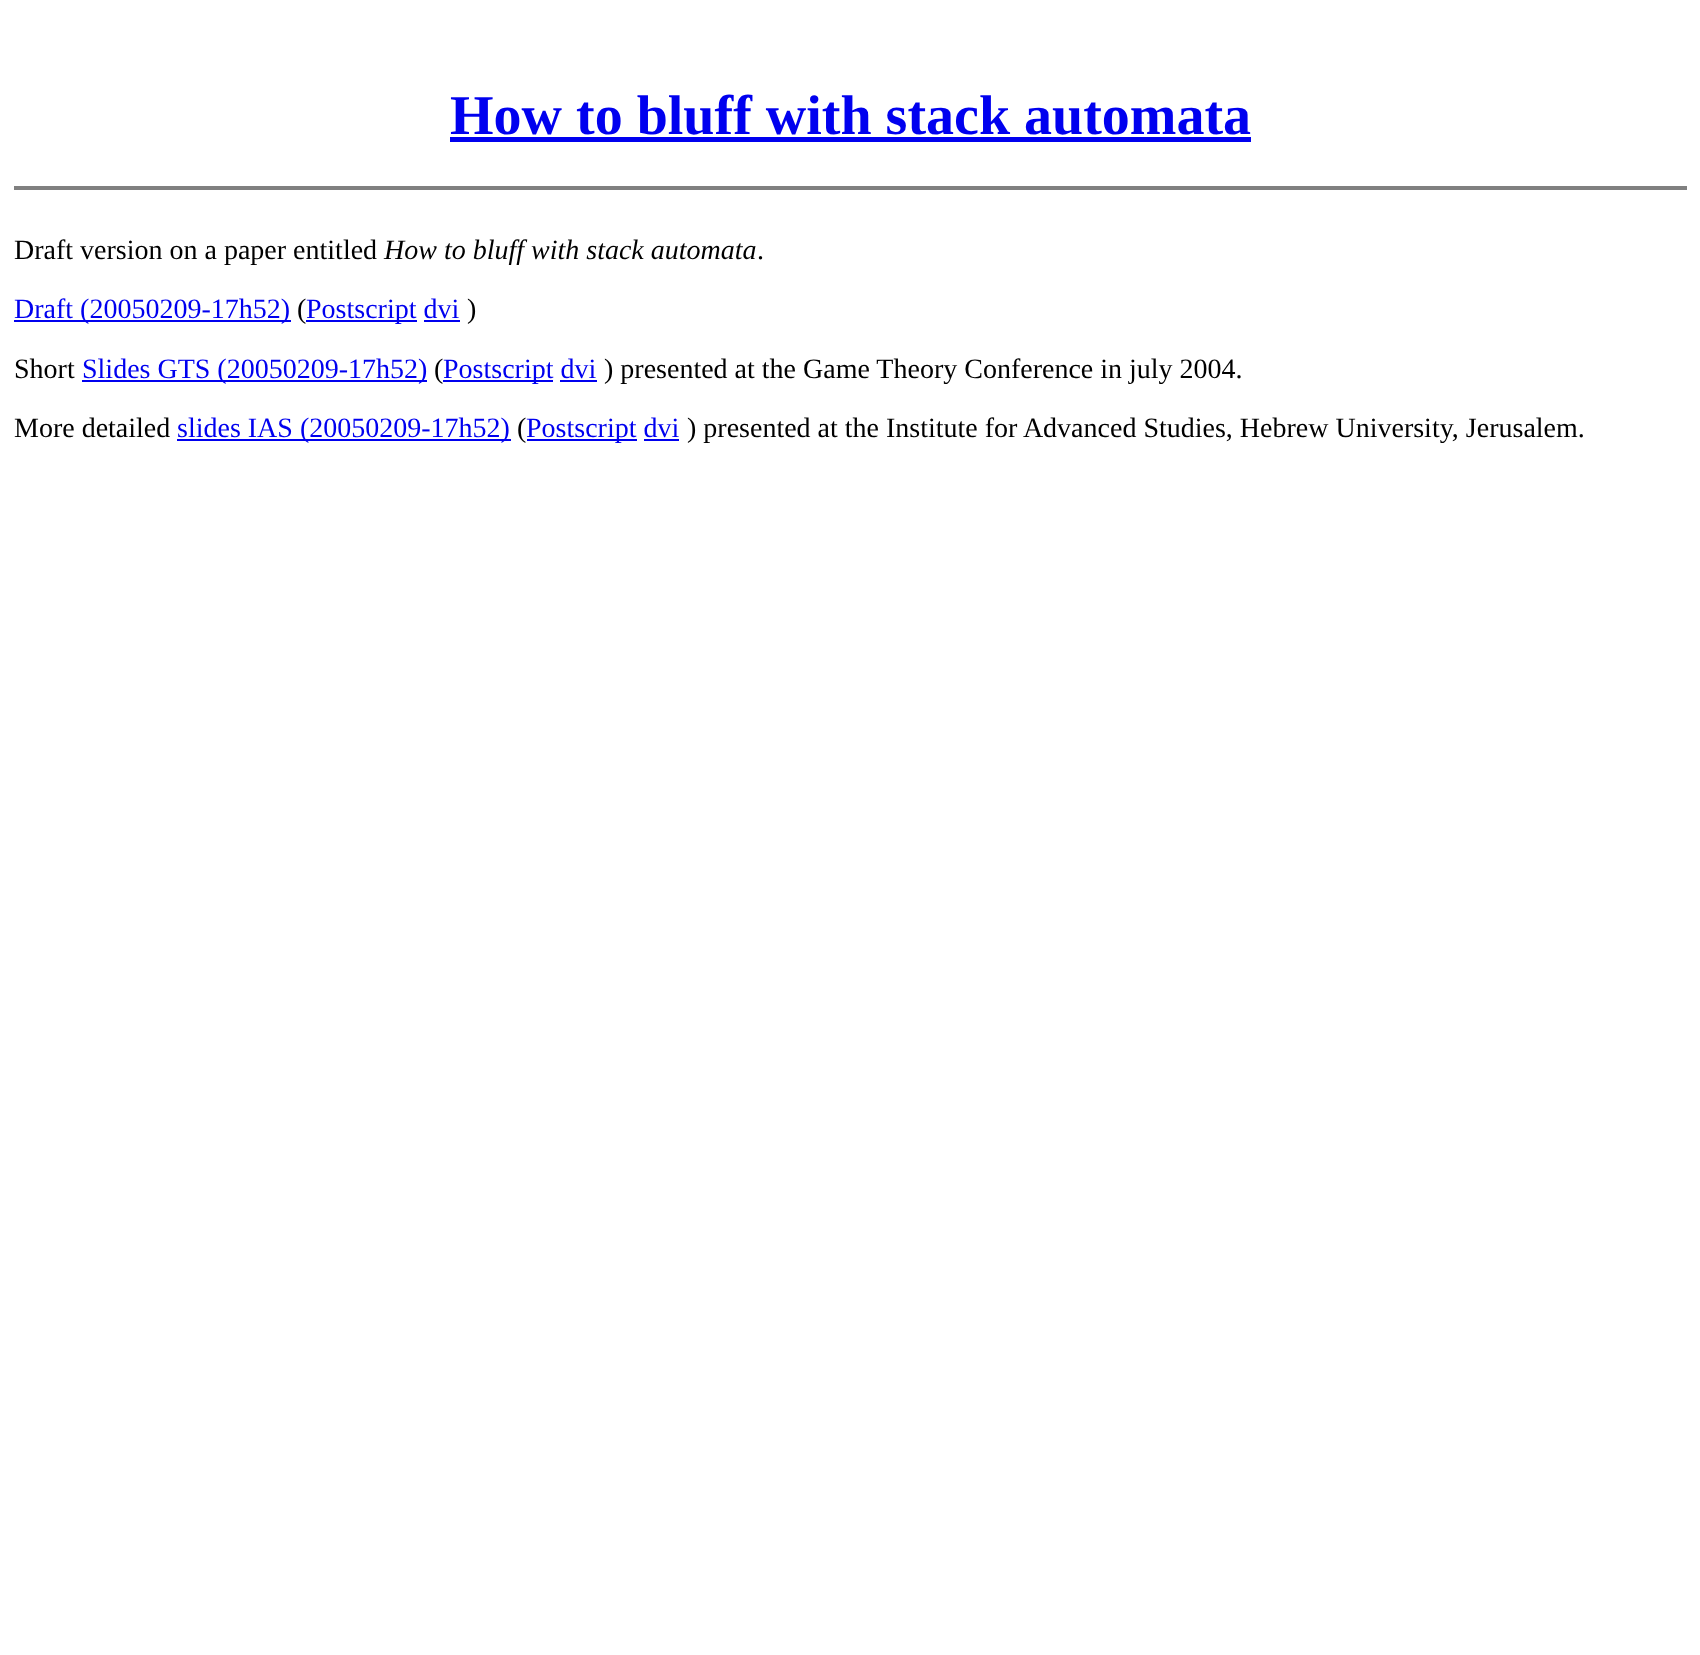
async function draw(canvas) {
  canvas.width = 1700
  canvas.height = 1655
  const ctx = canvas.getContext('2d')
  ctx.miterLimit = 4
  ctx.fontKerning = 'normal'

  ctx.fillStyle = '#fff'
  ctx.fillRect(0, 0, 1700, 1655)
  ctx.font = 'bold 56px Liberation Serif'
  ctx.fillStyle = '#0000ef'
  ctx.fillText('How to bluff with stack automata', 450, 134)
  ctx.fillRect(450, 137, 801, 5)
  ctx.fillStyle = '#808080'
  ctx.fillRect(14, 186, 1673, 4)
  ctx.font = '28px Liberation Serif'
  ctx.fillStyle = '#000'
  ctx.fillText('Draft version on a paper entitled', 14, 259)
  ctx.font = 'italic 28px Liberation Serif'
  ctx.fillText('How to bluff with stack automata', 384, 259)
  ctx.font = '28px Liberation Serif'
  ctx.fillText('.', 757, 259)
  ctx.fillStyle = '#0000ef'
  ctx.fillRect(14, 320, 277, 2)
  ctx.fillText('Draft (20050209-17h52)', 14, 318)
  ctx.fillStyle = '#000'
  ctx.fillText('(', 297, 318)
  ctx.fillStyle = '#0000ef'
  ctx.fillRect(306, 320, 111, 2)
  ctx.fillText('Postscript dvi', 306, 318)
  ctx.fillStyle = '#000'
  ctx.fillText(')', 467, 318)
  ctx.fillStyle = '#0000ef'
  ctx.fillRect(424, 320, 36, 2)
  ctx.fillStyle = '#000'
  ctx.fillText('Short', 14, 378)
  ctx.fillStyle = '#0000ef'
  ctx.fillRect(82, 380, 345, 2)
  ctx.fillText('Slides GTS (20050209-17h52)', 82, 378)
  ctx.fillStyle = '#000'
  ctx.fillText('(', 434, 378)
  ctx.fillStyle = '#0000ef'
  ctx.fillRect(443, 380, 110, 2)
  ctx.fillText('Postscript dvi', 443, 378)
  ctx.fillStyle = '#000'
  ctx.fillText(') presented at the Game Theory Conference in july 2004.', 604, 378)
  ctx.fillStyle = '#0000ef'
  ctx.fillRect(560, 380, 37, 2)
  ctx.fillStyle = '#000'
  ctx.fillText('More detailed', 14, 437)
  ctx.fillStyle = '#0000ef'
  ctx.fillRect(177, 439, 334, 2)
  ctx.fillText('slides IAS (20050209-17h52)', 177, 437)
  ctx.fillStyle = '#000'
  ctx.fillText('(', 517, 437)
  ctx.fillStyle = '#0000ef'
  ctx.fillRect(527, 439, 110, 2)
  ctx.fillText('Postscript dvi', 526, 437)
  ctx.fillStyle = '#000'
  ctx.fillText(') presented at the Institute for Advanced Studies, Hebrew University, Jerusalem.', 687, 437)
  ctx.fillStyle = '#0000ef'
  ctx.fillRect(644, 439, 35, 2)
}

draw(document.querySelector('canvas'))
